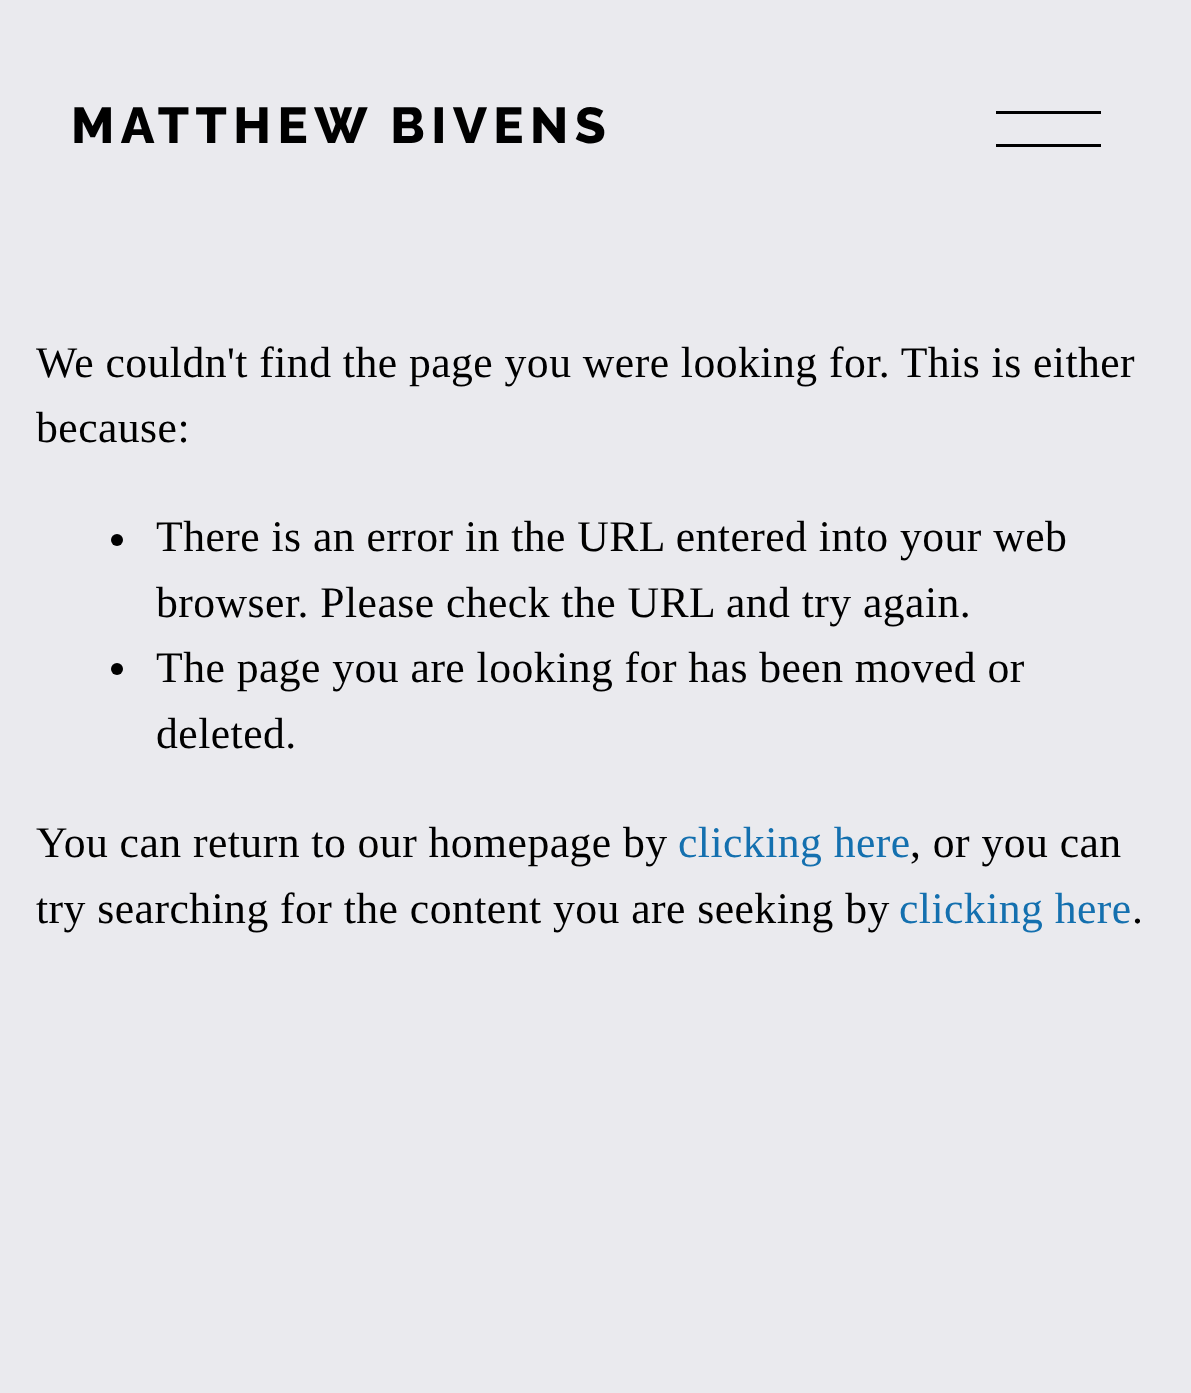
async function draw(canvas) {
  canvas.width = 1191
  canvas.height = 1393
  const ctx = canvas.getContext('2d')
  ctx.miterLimit = 4
  ctx.fontKerning = 'normal'

  ctx.fillStyle = '#eaeaee'
  ctx.fillRect(0, 0, 1191, 1393)
  ctx.letterSpacing = '6.5px'
  ctx.font = '800 50.4px Raleway'
  ctx.fillStyle = '#000'
  ctx.fillText('MATTHEW BIVENS', 71, 143)
  ctx.fillRect(996, 111, 105, 3)
  ctx.fillRect(996, 144, 105, 3)
  ctx.letterSpacing = '0.45px'
  ctx.font = '43.7px Liberation Serif'
  ctx.fillText('We couldn\'t find the page you were looking for. This is either', 36, 377)
  ctx.fillText('because:', 36, 442)
  ctx.beginPath()
  ctx.arc(117, 540, 6, 0, 2 * Math.PI)
  ctx.fill()
  ctx.fillText('There is an error in the URL entered into your web', 156, 551)
  ctx.fillText('browser. Please check the URL and try again.', 156, 617)
  ctx.beginPath()
  ctx.arc(117, 669, 6, 0, 2 * Math.PI)
  ctx.fill()
  ctx.fillText('The page you are looking for has been moved or', 156, 682)
  ctx.fillText('deleted.', 156, 748)
  ctx.fillText('You can return to our homepage by', 36, 857)
  ctx.fillStyle = '#1470af'
  ctx.fillText('clicking here', 678, 857)
  ctx.fillStyle = '#000'
  ctx.fillText(', or you can', 910, 857)
  ctx.fillText('try searching for the content you are seeking by', 36, 923)
  ctx.fillStyle = '#1470af'
  ctx.fillText('clicking here', 899, 923)
  ctx.fillStyle = '#000'
  ctx.fillText('.', 1132, 923)
}

draw(document.querySelector('canvas'))
